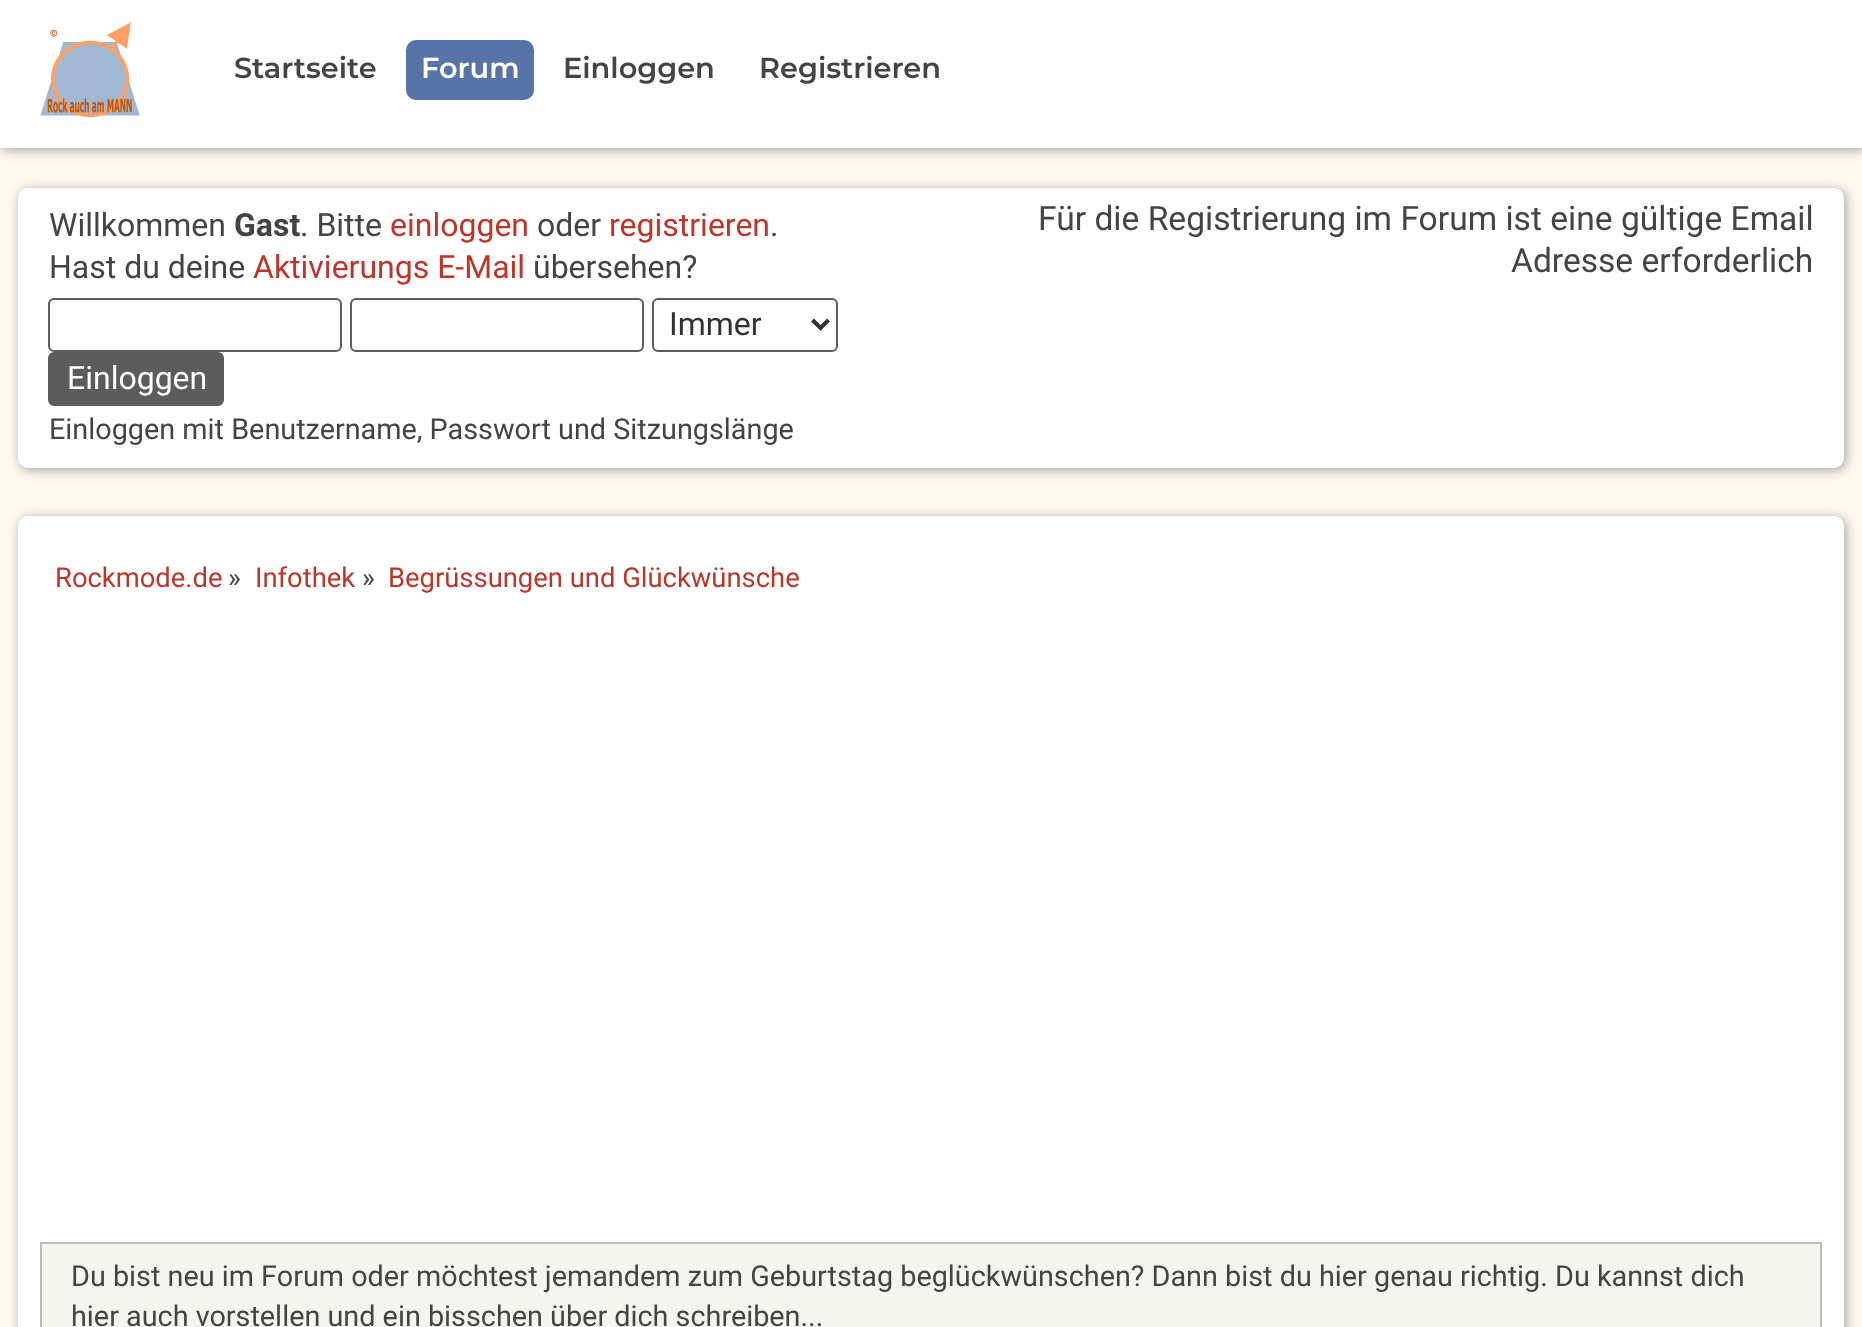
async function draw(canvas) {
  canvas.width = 1862
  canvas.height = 1327
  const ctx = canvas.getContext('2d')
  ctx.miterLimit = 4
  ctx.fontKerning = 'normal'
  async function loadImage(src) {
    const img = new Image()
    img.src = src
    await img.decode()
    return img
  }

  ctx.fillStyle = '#fff9f1'
  ctx.fillRect(0, 0, 1862, 1327)
  ctx.fillStyle = '#a0a0a0'
  ctx.filter = 'blur(6px)'
  ctx.beginPath()
  ctx.rect(2, 2, 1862, 148)
  ctx.fill()
  ctx.filter = 'none'
  ctx.fillStyle = '#fefefe'
  ctx.fillRect(0, 0, 1862, 148)
  ctx.drawImage(await loadImage('image0.png'), 40, 22, 100, 96)
  ctx.font = '600 28.8px Montserrat'
  ctx.fillStyle = '#444'
  ctx.fillText('Startseite', 234, 78)
  ctx.fillStyle = '#5873a8'
  ctx.beginPath()
  ctx.roundRect(406, 40, 128, 60, 10)
  ctx.fill()
  ctx.fillStyle = '#fff'
  ctx.fillText('Forum', 421, 78)
  ctx.fillStyle = '#444'
  ctx.fillText('Einloggen', 563, 78)
  ctx.fillText('Registrieren', 759, 78)
  ctx.fillStyle = '#a0a0a0'
  ctx.filter = 'blur(6px)'
  ctx.beginPath()
  ctx.roundRect(20, 190, 1826, 280, 10)
  ctx.fill()
  ctx.filter = 'none'
  ctx.fillStyle = '#fefefe'
  ctx.beginPath()
  ctx.roundRect(18, 188, 1826, 280, 10)
  ctx.fill()
  ctx.font = '32px Roboto'
  ctx.fillStyle = '#444'
  ctx.fillText('Willkommen', 49, 236)
  ctx.font = 'bold 32px Roboto'
  ctx.fillText('Gast', 234, 236)
  ctx.font = '32px Roboto'
  ctx.fillText('. Bitte', 300, 236)
  ctx.fillStyle = '#bd352b'
  ctx.fillText('einloggen', 390, 236)
  ctx.fillStyle = '#444'
  ctx.fillText('oder', 537, 236)
  ctx.fillStyle = '#bd352b'
  ctx.fillText('registrieren', 609, 236)
  ctx.fillStyle = '#444'
  ctx.fillText('.', 770, 236)
  ctx.fillText('Hast du deine', 49, 278)
  ctx.fillStyle = '#bd352b'
  ctx.fillText('Aktivierungs E-Mail', 253, 278)
  ctx.fillStyle = '#444'
  ctx.fillText('übersehen?', 533, 278)
  ctx.beginPath()
  ctx.roundRect(49, 299, 292, 52, 5)
  ctx.strokeStyle = '#5c5c5c'
  ctx.lineWidth = 2
  ctx.stroke()
  ctx.beginPath()
  ctx.roundRect(351, 299, 292, 52, 5)
  ctx.stroke()
  ctx.beginPath()
  ctx.roundRect(653, 299, 184, 52, 5)
  ctx.stroke()
  ctx.beginPath()
  ctx.moveTo(812.5, 320)
  ctx.lineTo(820.5, 328)
  ctx.lineTo(828.5, 320)
  ctx.strokeStyle = '#323232'
  ctx.lineWidth = 4
  ctx.stroke()
  ctx.fillStyle = '#323232'
  ctx.fillText('Immer', 669, 335)
  ctx.fillStyle = '#5c5c5c'
  ctx.beginPath()
  ctx.roundRect(49, 353, 174, 52, 5)
  ctx.fill()
  ctx.strokeStyle = '#5c5c5c'
  ctx.lineWidth = 2
  ctx.stroke()
  ctx.fillStyle = '#fff'
  ctx.fillText('Einloggen', 67, 389)
  ctx.font = '28.8px Roboto'
  ctx.fillStyle = '#444'
  ctx.fillText('Einloggen mit Benutzername, Passwort und Sitzungslänge', 49, 439)
  ctx.font = '33.6px Roboto'
  ctx.fillText('Für die Registrierung im Forum ist eine gültige Email', 1038, 230)
  ctx.fillText('Adresse erforderlich', 1511, 272)
  ctx.fillStyle = '#a0a0a0'
  ctx.filter = 'blur(6px)'
  ctx.beginPath()
  ctx.roundRect(20, 518, 1826, 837, 10)
  ctx.fill()
  ctx.filter = 'none'
  ctx.fillStyle = '#fff'
  ctx.beginPath()
  ctx.roundRect(18, 516, 1826, 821, 10)
  ctx.fill()
  ctx.font = '27.4px Roboto'
  ctx.fillStyle = '#bd352b'
  ctx.fillText('Rockmode.de', 55, 587)
  ctx.fillStyle = '#444'
  ctx.fillText('»', 228, 587)
  ctx.fillStyle = '#bd352b'
  ctx.fillText('Infothek', 255, 587)
  ctx.fillStyle = '#444'
  ctx.fillText('»', 362, 587)
  ctx.fillStyle = '#bd352b'
  ctx.fillText('Begrüssungen und Glückwünsche', 388, 587)
  ctx.fillStyle = '#f5f5f0'
  ctx.beginPath()
  ctx.rect(41, 1243, 1780, 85)
  ctx.fill()
  ctx.strokeStyle = '#bbb'
  ctx.stroke()
  ctx.font = '28.8px Roboto'
  ctx.fillStyle = '#444'
  ctx.fillText('Du bist neu im Forum oder möchtest jemandem zum Geburtstag beglückwünschen? Dann bist du hier genau richtig. Du kannst dich', 71, 1286)
  ctx.fillText('hier auch vorstellen und ein bisschen über dich schreiben...', 71, 1326)
}

draw(document.querySelector('canvas'))
